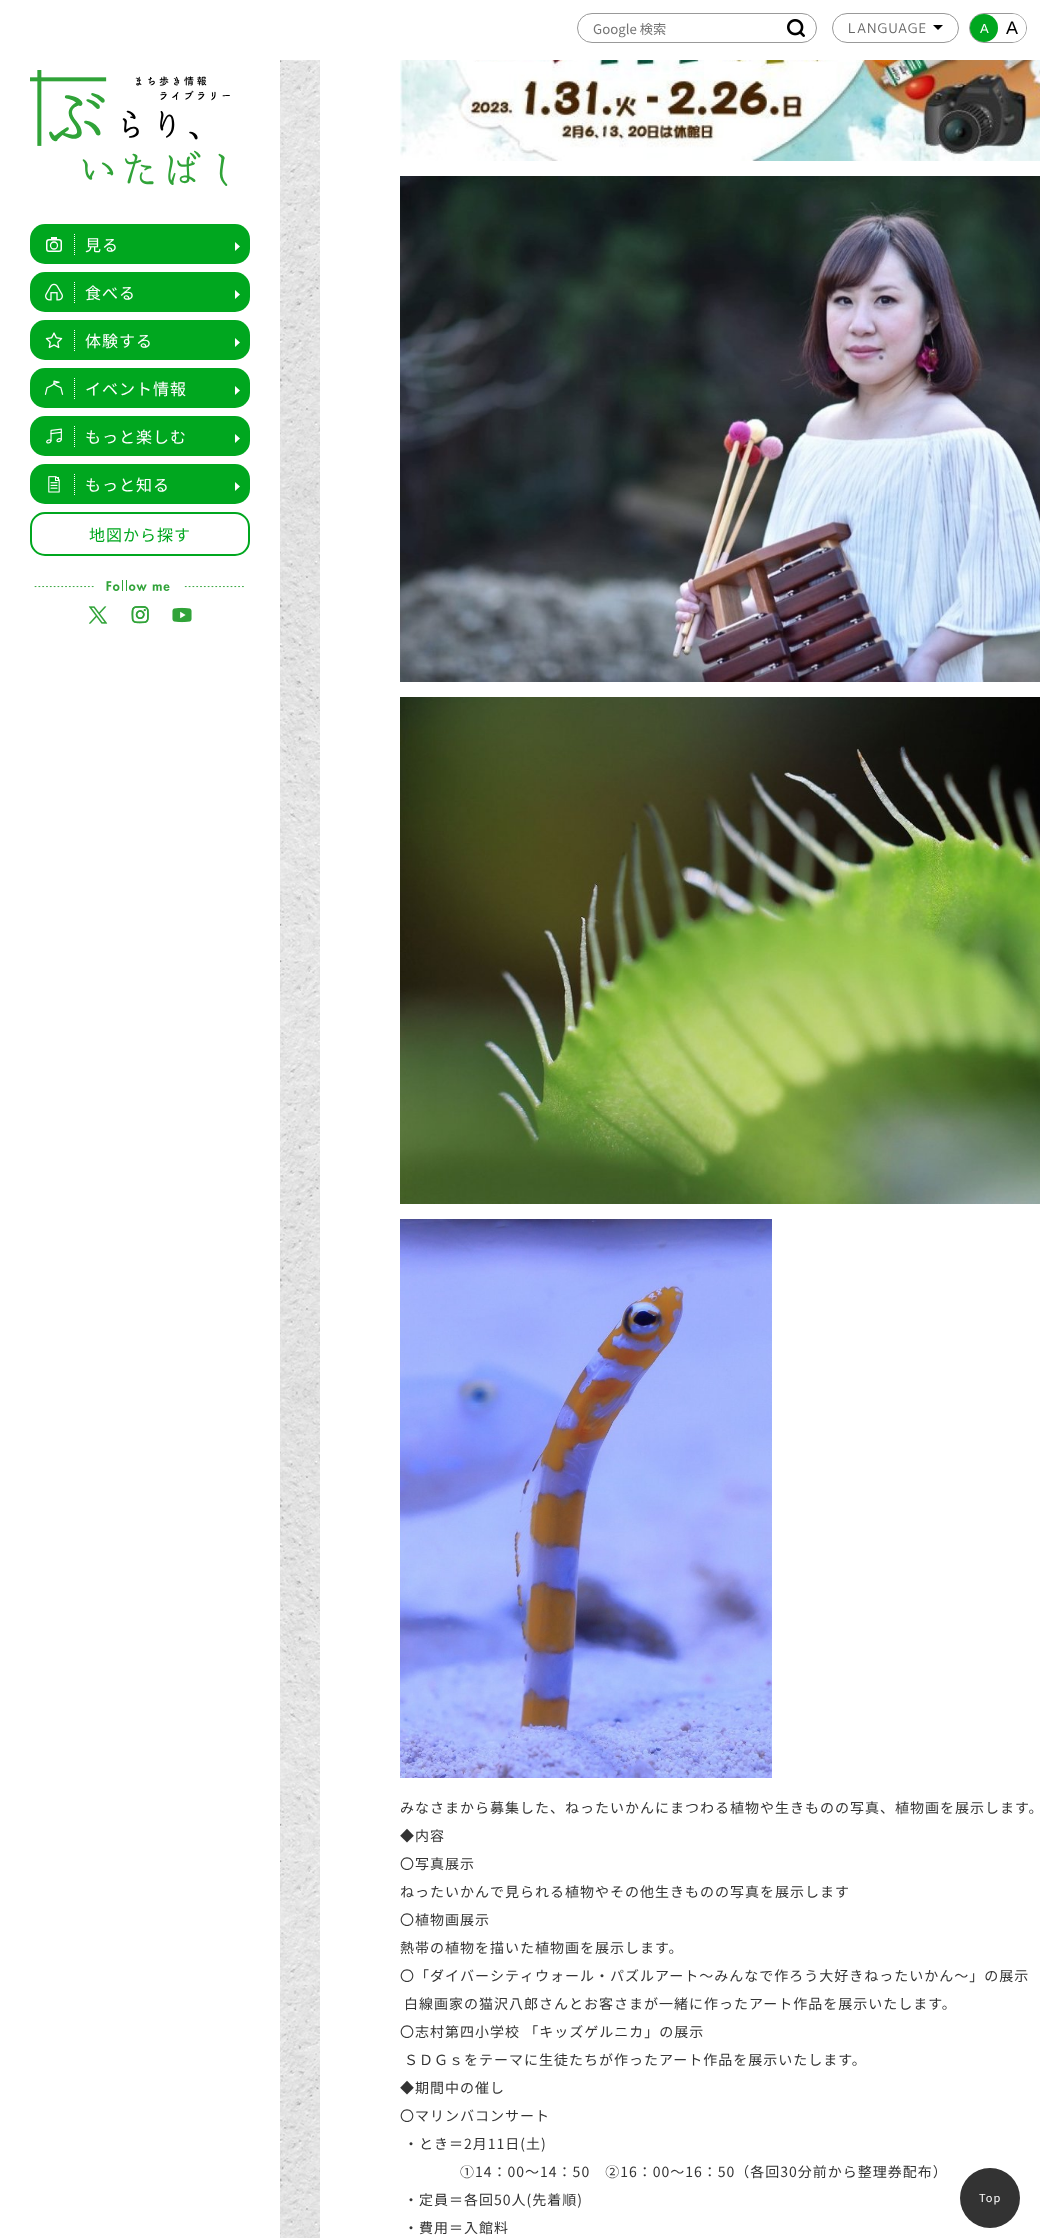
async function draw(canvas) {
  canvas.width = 1040
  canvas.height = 2238
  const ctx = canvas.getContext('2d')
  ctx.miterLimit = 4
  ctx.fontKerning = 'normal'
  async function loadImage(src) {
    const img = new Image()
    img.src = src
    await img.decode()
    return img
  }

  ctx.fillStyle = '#fff'
  ctx.fillRect(0, 0, 1040, 2238)
  ctx.drawImage(await loadImage('image0.png'), 280, 60, 40, 2178)
  ctx.beginPath()
  ctx.roundRect(577.5, 13.5, 239, 29, 14.5)
  ctx.strokeStyle = '#999'
  ctx.stroke()
  ctx.font = '13.25px Noto Sans JP'
  ctx.fillStyle = '#757575'
  ctx.fillText('Google 検索', 593, 34)
  ctx.drawImage(await loadImage('image1.png'), 787, 19, 18, 18)
  ctx.fillStyle = '#000'
  ctx.beginPath()
  ctx.moveTo(938, 30)
  ctx.lineTo(943, 25)
  ctx.lineTo(933, 25)
  ctx.closePath()
  ctx.fill()
  ctx.beginPath()
  ctx.roundRect(832.5, 13.5, 126, 29, 14.5)
  ctx.stroke()
  ctx.letterSpacing = '1px'
  ctx.font = '13.25px "M PLUS 1p"'
  ctx.fillStyle = '#666'
  ctx.fillText('LANGUAGE', 848, 33)
  ctx.beginPath()
  ctx.roundRect(969.5, 13.5, 57, 29, 14.5)
  ctx.stroke()
  ctx.fillStyle = '#00a71f'
  ctx.beginPath()
  ctx.arc(984, 28, 14, 0, 2 * Math.PI)
  ctx.fill()
  ctx.letterSpacing = '0px'
  ctx.font = '13px Liberation Sans'
  ctx.fillStyle = '#fff'
  ctx.fillText('A', 980, 33)
  ctx.beginPath()
  ctx.arc(1012, 28, 14, 0, 2 * Math.PI)
  ctx.fill()
  ctx.font = '18px Liberation Sans'
  ctx.fillStyle = '#000'
  ctx.fillText('A', 1006, 34)
  ctx.drawImage(await loadImage('image2.png'), 30, 70, 200, 116)
  ctx.fillStyle = '#00a71f'
  ctx.beginPath()
  ctx.roundRect(30, 224, 220, 40, 15)
  ctx.fill()
  ctx.beginPath()
  ctx.moveTo(74.5, 234)
  ctx.lineTo(74.5, 255)
  ctx.strokeStyle = '#fff'
  ctx.setLineDash([1, 1])
  ctx.stroke()
  ctx.beginPath()
  ctx.roundRect(46.75, 239.75, 14.5, 11.5, 2.25)
  ctx.lineWidth = 1.5
  ctx.setLineDash([])
  ctx.stroke()
  ctx.strokeRect(51.75, 237.75, 4.5, 1.5)
  ctx.beginPath()
  ctx.arc(54, 245.5, 3.5, 0, 2 * Math.PI)
  ctx.lineWidth = 1.3
  ctx.stroke()
  ctx.letterSpacing = '1px'
  ctx.font = '16px Noto Sans JP'
  ctx.fillStyle = '#fff'
  ctx.fillText('見る', 85, 251)
  ctx.drawImage(await loadImage('image3.png'), 235, 242, 5, 9)
  ctx.fillStyle = '#00a71f'
  ctx.beginPath()
  ctx.roundRect(30, 272, 220, 40, 15)
  ctx.fill()
  ctx.beginPath()
  ctx.moveTo(74.5, 282)
  ctx.lineTo(74.5, 303)
  ctx.lineWidth = 1
  ctx.setLineDash([1, 1])
  ctx.stroke()
  ctx.drawImage(await loadImage('image4.png'), 45, 283, 18, 18)
  ctx.fillStyle = '#fff'
  ctx.fillText('食べる', 85, 299)
  ctx.drawImage(await loadImage('image3.png'), 235, 290, 5, 9)
  ctx.fillStyle = '#00a71f'
  ctx.beginPath()
  ctx.roundRect(30, 320, 220, 40, 15)
  ctx.fill()
  ctx.beginPath()
  ctx.moveTo(74.5, 330)
  ctx.lineTo(74.5, 351)
  ctx.stroke()
  ctx.drawImage(await loadImage('image5.png'), 45, 332, 18, 17)
  ctx.fillStyle = '#fff'
  ctx.fillText('体験する', 85, 347)
  ctx.drawImage(await loadImage('image3.png'), 235, 338, 5, 9)
  ctx.fillStyle = '#00a71f'
  ctx.beginPath()
  ctx.roundRect(30, 368, 220, 40, 15)
  ctx.fill()
  ctx.beginPath()
  ctx.moveTo(74.5, 378)
  ctx.lineTo(74.5, 399)
  ctx.stroke()
  ctx.drawImage(await loadImage('image6.png'), 44, 380, 20, 15)
  ctx.fillStyle = '#fff'
  ctx.fillText('イベント情報', 85, 395)
  ctx.drawImage(await loadImage('image3.png'), 235, 386, 5, 9)
  ctx.fillStyle = '#00a71f'
  ctx.beginPath()
  ctx.roundRect(30, 416, 220, 40, 15)
  ctx.fill()
  ctx.beginPath()
  ctx.moveTo(74.5, 426)
  ctx.lineTo(74.5, 447)
  ctx.stroke()
  ctx.drawImage(await loadImage('image7.png'), 46, 428, 16, 16)
  ctx.fillStyle = '#fff'
  ctx.fillText('もっと楽しむ', 85, 443)
  ctx.drawImage(await loadImage('image3.png'), 235, 434, 5, 9)
  ctx.fillStyle = '#00a71f'
  ctx.beginPath()
  ctx.roundRect(30, 464, 220, 40, 15)
  ctx.fill()
  ctx.beginPath()
  ctx.moveTo(74.5, 474)
  ctx.lineTo(74.5, 495)
  ctx.stroke()
  ctx.drawImage(await loadImage('image8.png'), 48, 476, 12, 17)
  ctx.fillStyle = '#fff'
  ctx.fillText('もっと知る', 85, 491)
  ctx.drawImage(await loadImage('image3.png'), 235, 482, 5, 9)
  ctx.beginPath()
  ctx.roundRect(31, 513, 218, 42, 14)
  ctx.strokeStyle = '#00a71f'
  ctx.lineWidth = 2
  ctx.setLineDash([])
  ctx.stroke()
  ctx.fillStyle = '#00a71f'
  ctx.fillText('地図から探す', 89, 541)
  ctx.drawImage(await loadImage('image9.png'), 34, 580, 210, 11)
  ctx.drawImage(await loadImage('image10.png'), 88, 606, 20, 18)
  ctx.drawImage(await loadImage('image11.png'), 131, 606, 18, 18)
  ctx.drawImage(await loadImage('image12.png'), 172, 607, 20, 16)
  ctx.drawImage(await loadImage('image13.png'), 400, 60, 640, 101)
  ctx.drawImage(await loadImage('image14.png'), 400, 176, 640, 506)
  ctx.drawImage(await loadImage('image15.png'), 400, 697, 640, 507)
  ctx.drawImage(await loadImage('image16.png'), 400, 1219, 372, 559)
  ctx.font = '14px Noto Sans JP'
  ctx.fillStyle = '#333'
  ctx.fillText('みなさまから募集した、ねったいかんにまつわる植物や生きものの写真、植物画を展示します。', 400, 1813)
  ctx.fillText('◆内容', 400, 1841)
  ctx.fillText('〇写真展示', 400, 1869)
  ctx.fillText('ねったいかんで見られる植物やその他生きものの写真を展示します', 400, 1897)
  ctx.fillText('〇植物画展示', 400, 1925)
  ctx.fillText('熱帯の植物を描いた植物画を展示します。', 400, 1953)
  ctx.fillText('〇「ダイバーシティウォール・パズルアート～みんなで作ろう大好きねったいかん～」の展示', 400, 1981)
  ctx.fillText('白線画家の猫沢八郎さんとお客さまが一緒に作ったアート作品を展示いたします。', 404, 2009)
  ctx.fillText('〇志村第四小学校 「キッズゲルニカ」の展示', 400, 2037)
  ctx.fillText('ＳＤＧｓをテーマに生徒たちが作ったアート作品を展示いたします。', 404, 2065)
  ctx.fillText('◆期間中の催し', 400, 2093)
  ctx.fillText('〇マリンバコンサート', 400, 2121)
  ctx.fillText('・とき＝2月11日(土)', 404, 2149)
  ctx.fillText('①14：00～14：50　②16：00～16：50（各回30分前から整理券配布）', 460, 2177)
  ctx.fillText('・定員＝各回50人(先着順)', 404, 2205)
  ctx.fillText('・費用＝入館料', 404, 2233)
  ctx.beginPath()
  ctx.arc(990, 2198, 30, 0, 2 * Math.PI)
  ctx.fill()
  ctx.font = '11px Noto Sans JP'
  ctx.fillStyle = '#fff'
  ctx.fillText('Top', 979, 2202)
}

draw(document.querySelector('canvas'))
